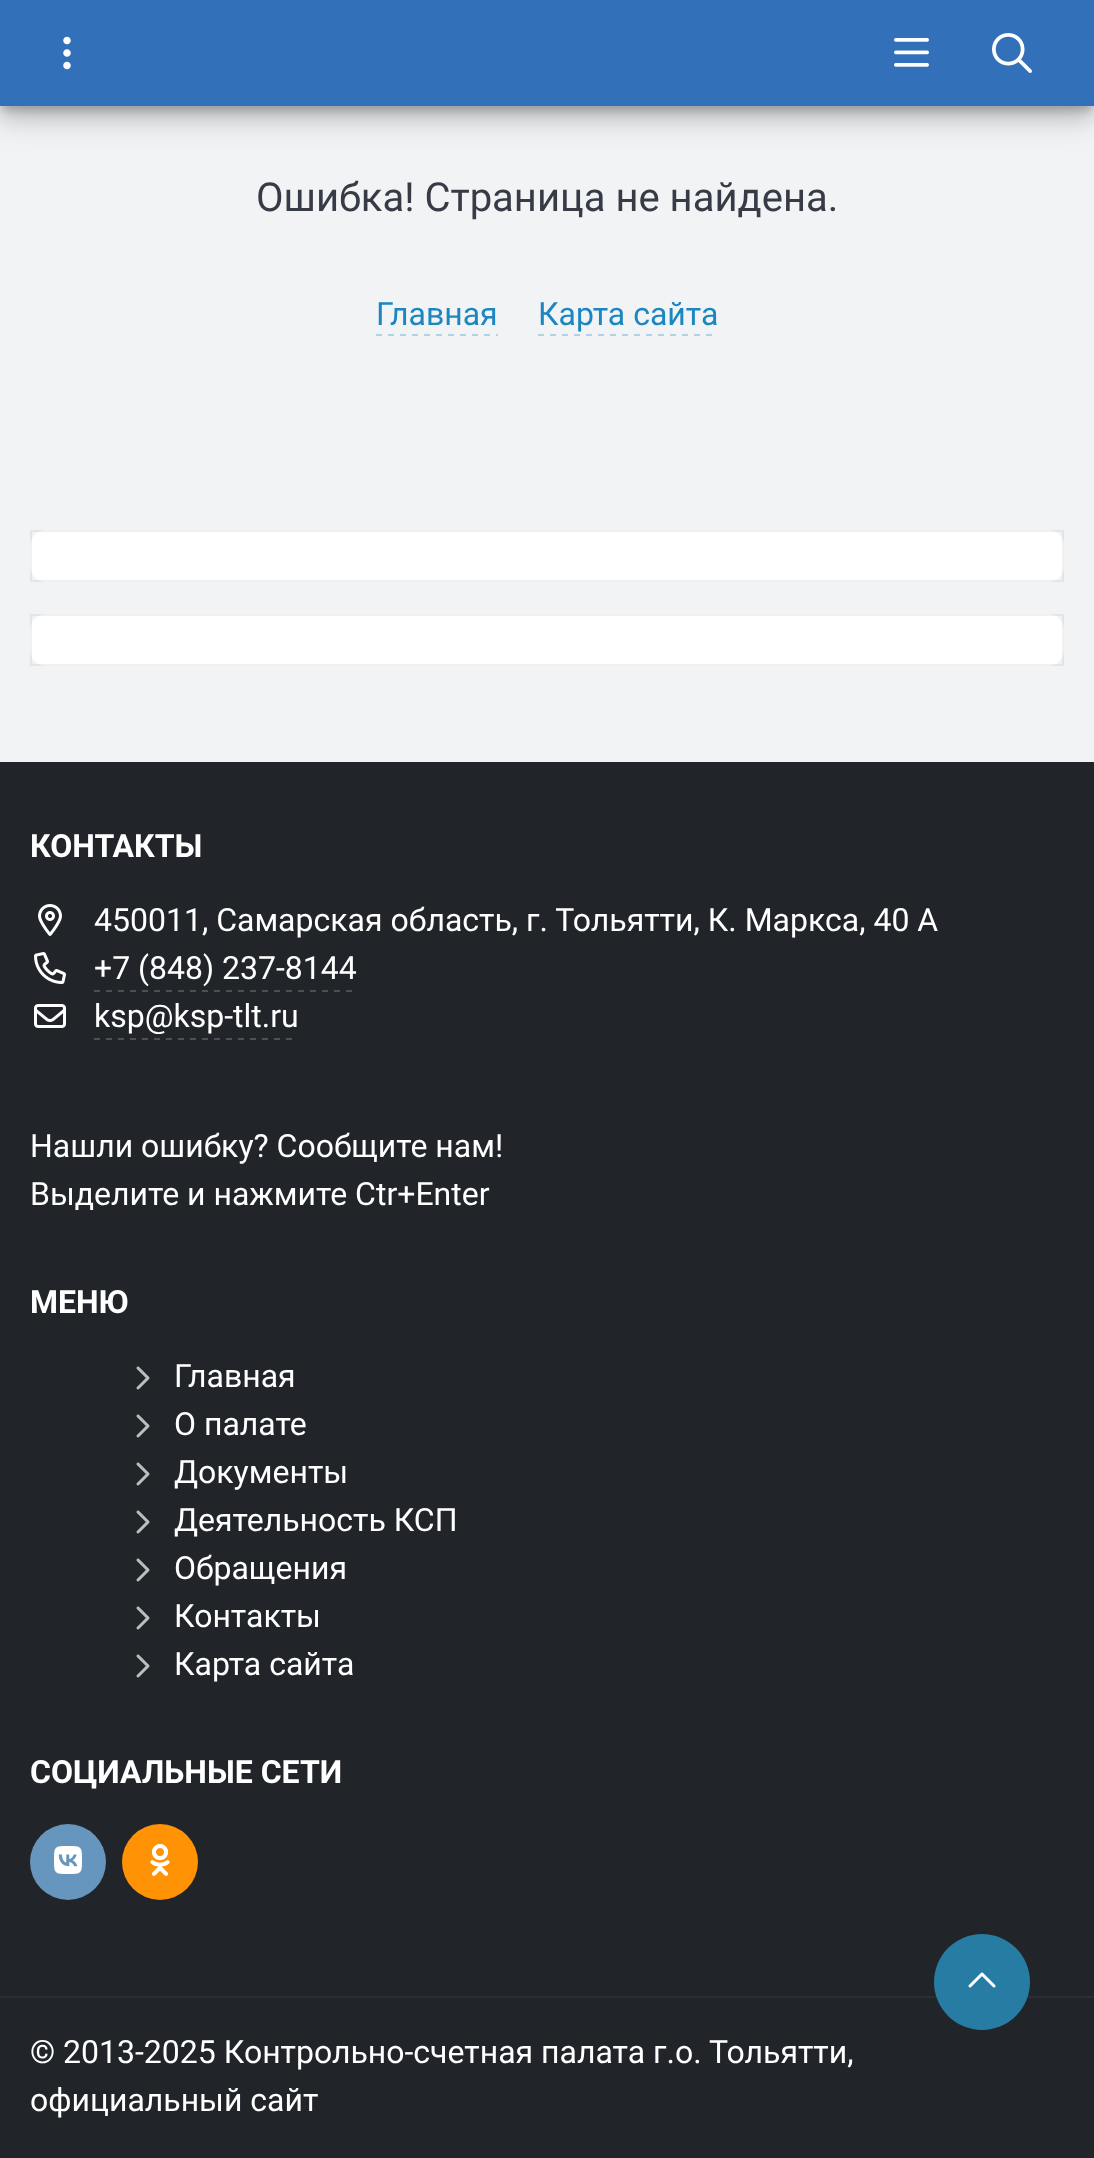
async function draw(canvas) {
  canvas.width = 1094
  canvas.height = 2158
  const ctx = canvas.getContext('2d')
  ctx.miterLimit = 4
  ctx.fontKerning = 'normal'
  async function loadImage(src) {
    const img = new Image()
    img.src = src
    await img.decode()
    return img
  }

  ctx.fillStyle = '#f1f3f5'
  ctx.fillRect(0, 0, 1094, 2158)
  ctx.fillStyle = '#0000001f'
  ctx.filter = 'blur(18px)'
  ctx.beginPath()
  ctx.rect(0, 12, 1094, 106)
  ctx.fill()
  ctx.filter = 'none'
  ctx.fillStyle = '#00000024'
  ctx.filter = 'blur(10px)'
  ctx.beginPath()
  ctx.rect(0, 12, 1094, 106)
  ctx.fill()
  ctx.filter = 'none'
  ctx.fillStyle = '#00000033'
  ctx.filter = 'blur(5px)'
  ctx.beginPath()
  ctx.rect(2, 8, 1090, 102)
  ctx.fill()
  ctx.filter = 'none'
  ctx.fillStyle = '#3270b9'
  ctx.fillRect(0, 0, 1094, 106)
  ctx.drawImage(await loadImage('image0.png'), 63, 36, 8, 34)
  ctx.drawImage(await loadImage('image1.png'), 894, 38, 35, 29)
  ctx.drawImage(await loadImage('image2.png'), 992, 33, 40, 40)
  ctx.font = '40px Roboto'
  ctx.fillStyle = '#373b46'
  ctx.fillText('Ошибка! Страница не найдена.', 256, 211)
  ctx.font = '32px Roboto'
  ctx.fillStyle = '#1b86c0'
  ctx.fillText('Главная', 376, 325)
  ctx.fillStyle = '#b1d2e5'
  ctx.fillRect(376, 334, 6, 2)
  ctx.fillRect(388, 334, 6, 2)
  ctx.fillRect(400, 334, 6, 2)
  ctx.fillRect(412, 334, 6, 2)
  ctx.fillRect(424, 334, 6, 2)
  ctx.fillRect(436, 334, 6, 2)
  ctx.fillRect(448, 334, 6, 2)
  ctx.fillRect(460, 334, 6, 2)
  ctx.fillRect(472, 334, 6, 2)
  ctx.fillRect(484, 334, 6, 2)
  ctx.fillRect(496, 334, 2, 2)
  ctx.fillStyle = '#1b86c0'
  ctx.fillText('Карта сайта', 538, 325)
  ctx.fillStyle = '#b1d2e5'
  ctx.fillRect(538, 334, 6, 2)
  ctx.fillRect(550, 334, 6, 2)
  ctx.fillRect(562, 334, 6, 2)
  ctx.fillRect(574, 334, 6, 2)
  ctx.fillRect(586, 334, 6, 2)
  ctx.fillRect(598, 334, 6, 2)
  ctx.fillRect(610, 334, 6, 2)
  ctx.fillRect(622, 334, 6, 2)
  ctx.fillRect(634, 334, 6, 2)
  ctx.fillRect(646, 334, 6, 2)
  ctx.fillRect(658, 334, 6, 2)
  ctx.fillRect(670, 334, 6, 2)
  ctx.fillRect(682, 334, 6, 2)
  ctx.fillRect(694, 334, 6, 2)
  ctx.fillRect(706, 334, 6, 2)
  ctx.fillStyle = '#fff'
  ctx.beginPath()
  ctx.roundRect(30, 530, 1034, 52, 16)
  ctx.fill()
  ctx.strokeStyle = '#0000000f'
  ctx.lineWidth = 2
  ctx.strokeRect(31, 531, 1032, 50)
  ctx.beginPath()
  ctx.roundRect(30, 614, 1034, 52, 16)
  ctx.fill()
  ctx.strokeRect(31, 615, 1032, 50)
  ctx.fillStyle = '#212529'
  ctx.fillRect(0, 762, 1094, 1396)
  ctx.fillStyle = '#2a2e32'
  ctx.fillRect(0, 1996, 1094, 2)
  ctx.font = 'bold 32px Roboto'
  ctx.fillStyle = '#fff'
  ctx.fillText('КОНТАКТЫ', 30, 857)
  ctx.drawImage(await loadImage('image3.png'), 38, 904, 24, 32)
  ctx.font = '32px Roboto'
  ctx.fillText('450011, Самарская область, г. Тольятти, К. Маркса, 40 А', 94, 931)
  ctx.drawImage(await loadImage('image4.png'), 34, 952, 32, 32)
  ctx.fillText('+7 (848) 237-8144', 94, 979)
  ctx.drawImage(await loadImage('image5.png'), 94, 990, 258, 2)
  ctx.drawImage(await loadImage('image6.png'), 34, 1004, 32, 24)
  ctx.fillText('ksp@ksp-tlt.ru', 94, 1027)
  ctx.fillStyle = '#4d5154'
  ctx.fillRect(94, 1038, 6, 2)
  ctx.fillRect(106, 1038, 6, 2)
  ctx.fillRect(118, 1038, 6, 2)
  ctx.fillRect(130, 1038, 6, 2)
  ctx.fillRect(142, 1038, 6, 2)
  ctx.fillRect(154, 1038, 6, 2)
  ctx.fillRect(166, 1038, 6, 2)
  ctx.fillRect(178, 1038, 6, 2)
  ctx.fillRect(190, 1038, 6, 2)
  ctx.fillRect(202, 1038, 6, 2)
  ctx.fillRect(214, 1038, 6, 2)
  ctx.fillRect(226, 1038, 6, 2)
  ctx.fillRect(238, 1038, 6, 2)
  ctx.fillRect(250, 1038, 6, 2)
  ctx.fillRect(262, 1038, 6, 2)
  ctx.fillRect(274, 1038, 6, 2)
  ctx.fillRect(286, 1038, 6, 2)
  ctx.fillStyle = '#fff'
  ctx.fillText('Нашли ошибку? Сообщите нам!', 30, 1157)
  ctx.fillText('Выделите и нажмите Ctr+Enter', 30, 1205)
  ctx.font = 'bold 32px Roboto'
  ctx.fillText('МЕНЮ', 30, 1313)
  ctx.drawImage(await loadImage('image7.png'), 136, 1366, 14, 24)
  ctx.font = '32px Roboto'
  ctx.fillText('Главная', 174, 1387)
  ctx.drawImage(await loadImage('image7.png'), 136, 1414, 14, 24)
  ctx.fillText('О палате', 174, 1435)
  ctx.drawImage(await loadImage('image7.png'), 136, 1462, 14, 24)
  ctx.fillText('Документы', 174, 1483)
  ctx.drawImage(await loadImage('image7.png'), 136, 1510, 14, 24)
  ctx.fillText('Деятельность КСП', 174, 1531)
  ctx.drawImage(await loadImage('image7.png'), 136, 1558, 14, 24)
  ctx.fillText('Обращения', 174, 1579)
  ctx.drawImage(await loadImage('image7.png'), 136, 1606, 14, 24)
  ctx.fillText('Контакты', 174, 1627)
  ctx.drawImage(await loadImage('image7.png'), 136, 1654, 14, 24)
  ctx.fillText('Карта сайта', 174, 1675)
  ctx.font = 'bold 32px Roboto'
  ctx.fillText('СОЦИАЛЬНЫЕ СЕТИ', 30, 1783)
  ctx.fillStyle = '#6695bd'
  ctx.beginPath()
  ctx.arc(68, 1862, 38, 0, 2 * Math.PI)
  ctx.fill()
  ctx.drawImage(await loadImage('image8.png'), 54, 1846, 28, 28)
  ctx.fillStyle = '#ff9205'
  ctx.beginPath()
  ctx.arc(160, 1862, 38, 0, 2 * Math.PI)
  ctx.fill()
  ctx.drawImage(await loadImage('image9.png'), 150, 1844, 20, 32)
  ctx.font = '32px Roboto'
  ctx.fillStyle = '#fff'
  ctx.fillText('© 2013-2025 Контрольно-счетная палата г.о. Тольятти,', 30, 2063)
  ctx.fillText('официальный сайт', 30, 2111)
  ctx.fillStyle = '#277ca4'
  ctx.beginPath()
  ctx.arc(982, 1982, 48, 0, 2 * Math.PI)
  ctx.fill()
  ctx.drawImage(await loadImage('image10.png'), 968, 1972, 28, 16)
}

draw(document.querySelector('canvas'))
